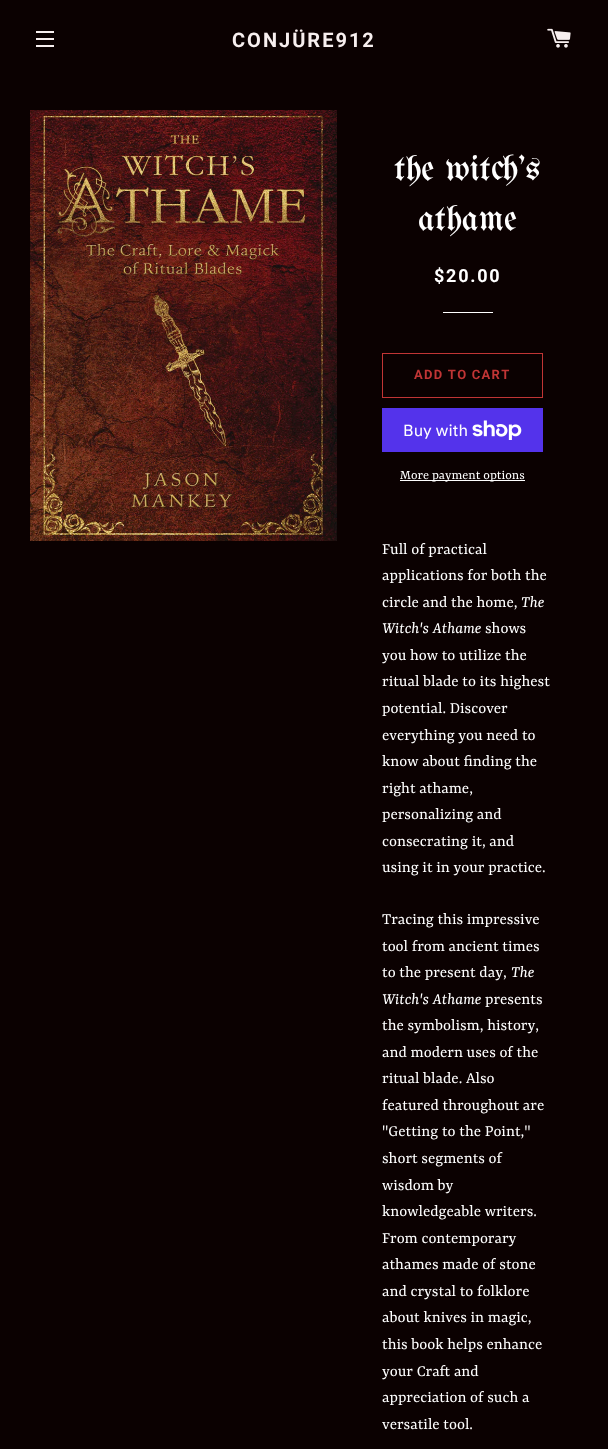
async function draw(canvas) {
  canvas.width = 608
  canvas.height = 1449
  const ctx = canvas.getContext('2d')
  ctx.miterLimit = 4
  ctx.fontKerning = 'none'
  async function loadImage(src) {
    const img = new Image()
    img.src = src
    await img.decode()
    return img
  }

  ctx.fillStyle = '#0b0101'
  ctx.fillRect(0, 0, 608, 1449)
  ctx.fillStyle = '#f7efef'
  ctx.fillRect(36, 31, 18, 2)
  ctx.fillRect(36, 38, 18, 2)
  ctx.fillRect(36, 45, 18, 2)
  ctx.letterSpacing = '2px'
  ctx.font = 'bold 20px Roboto'
  ctx.fillText('CONJÜRE912', 232, 47)
  ctx.drawImage(await loadImage('image0.png'), 547, 28, 24, 20)
  ctx.drawImage(await loadImage('image1.png'), 30, 110, 307, 431)
  ctx.letterSpacing = '0px'
  ctx.font = '36px UnifrakturMaguntia'
  ctx.fillStyle = '#fff'
  ctx.fillText('the witch’s', 394, 180)
  ctx.fillText('athame', 418, 230)
  ctx.letterSpacing = '1.75px'
  ctx.font = 'bold 18px Roboto'
  ctx.fillText('$20.00', 434, 282)
  ctx.fillRect(443, 312, 50, 1)
  ctx.strokeStyle = '#c13535'
  ctx.strokeRect(382.5, 353.5, 160, 44)
  ctx.letterSpacing = '1.25px'
  ctx.font = 'bold 13px Roboto'
  ctx.fillStyle = '#c13535'
  ctx.fillText('ADD TO CART', 414, 379)
  ctx.fillStyle = '#5433eb'
  ctx.fillRect(382, 408, 161, 44)
  ctx.letterSpacing = '0px'
  ctx.font = '16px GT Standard'
  ctx.fillStyle = '#fff'
  ctx.fillText('Buy with', 403, 436)
  ctx.drawImage(await loadImage('image2.png'), 472, 420, 50, 20)
  ctx.fillRect(400, 480, 125, 1)
  ctx.font = '14px Rasa'
  ctx.fillText('More payment options', 400, 479)
  ctx.font = '17px Rasa'
  ctx.fillText('Full of practical', 382, 554)
  ctx.fillText('applications for both the', 382, 580)
  ctx.fillText('circle and the home,', 382, 607)
  ctx.font = 'italic 17px Rasa'
  ctx.fillText('The', 521, 607)
  ctx.fillText('Witch\'s Athame', 382, 633)
  ctx.font = '17px Rasa'
  ctx.fillText('shows', 485, 633)
  ctx.fillText('you how to utilize the', 382, 660)
  ctx.fillText('ritual blade to its highest', 382, 686)
  ctx.fillText('potential. Discover', 382, 713)
  ctx.fillText('everything you need to', 382, 740)
  ctx.fillText('know about finding the', 382, 766)
  ctx.fillText('right athame,', 382, 793)
  ctx.fillText('personalizing and', 382, 819)
  ctx.fillText('consecrating it, and', 382, 846)
  ctx.fillText('using it in your practice.', 382, 872)
  ctx.fillText('Tracing this impressive', 382, 924)
  ctx.fillText('tool from ancient times', 382, 951)
  ctx.fillText('to the present day,', 382, 977)
  ctx.font = 'italic 17px Rasa'
  ctx.fillText('The', 511, 977)
  ctx.fillText('Witch\'s Athame', 382, 1004)
  ctx.font = '17px Rasa'
  ctx.fillText('presents', 485, 1004)
  ctx.fillText('the symbolism, history,', 382, 1030)
  ctx.fillText('and modern uses of the', 382, 1057)
  ctx.fillText('ritual blade. Also', 382, 1083)
  ctx.fillText('featured throughout are', 382, 1110)
  ctx.fillText('"Getting to the Point,"', 382, 1136)
  ctx.fillText('short segments of', 382, 1163)
  ctx.fillText('wisdom by', 382, 1190)
  ctx.fillText('knowledgeable writers.', 382, 1216)
  ctx.fillText('From contemporary', 382, 1243)
  ctx.fillText('athames made of stone', 382, 1269)
  ctx.fillText('and crystal to folklore', 382, 1296)
  ctx.fillText('about knives in magic,', 382, 1322)
  ctx.fillText('this book helps enhance', 382, 1349)
  ctx.fillText('your Craft and', 382, 1376)
  ctx.fillText('appreciation of such a', 382, 1402)
  ctx.fillText('versatile tool.', 382, 1429)
}

draw(document.querySelector('canvas'))
